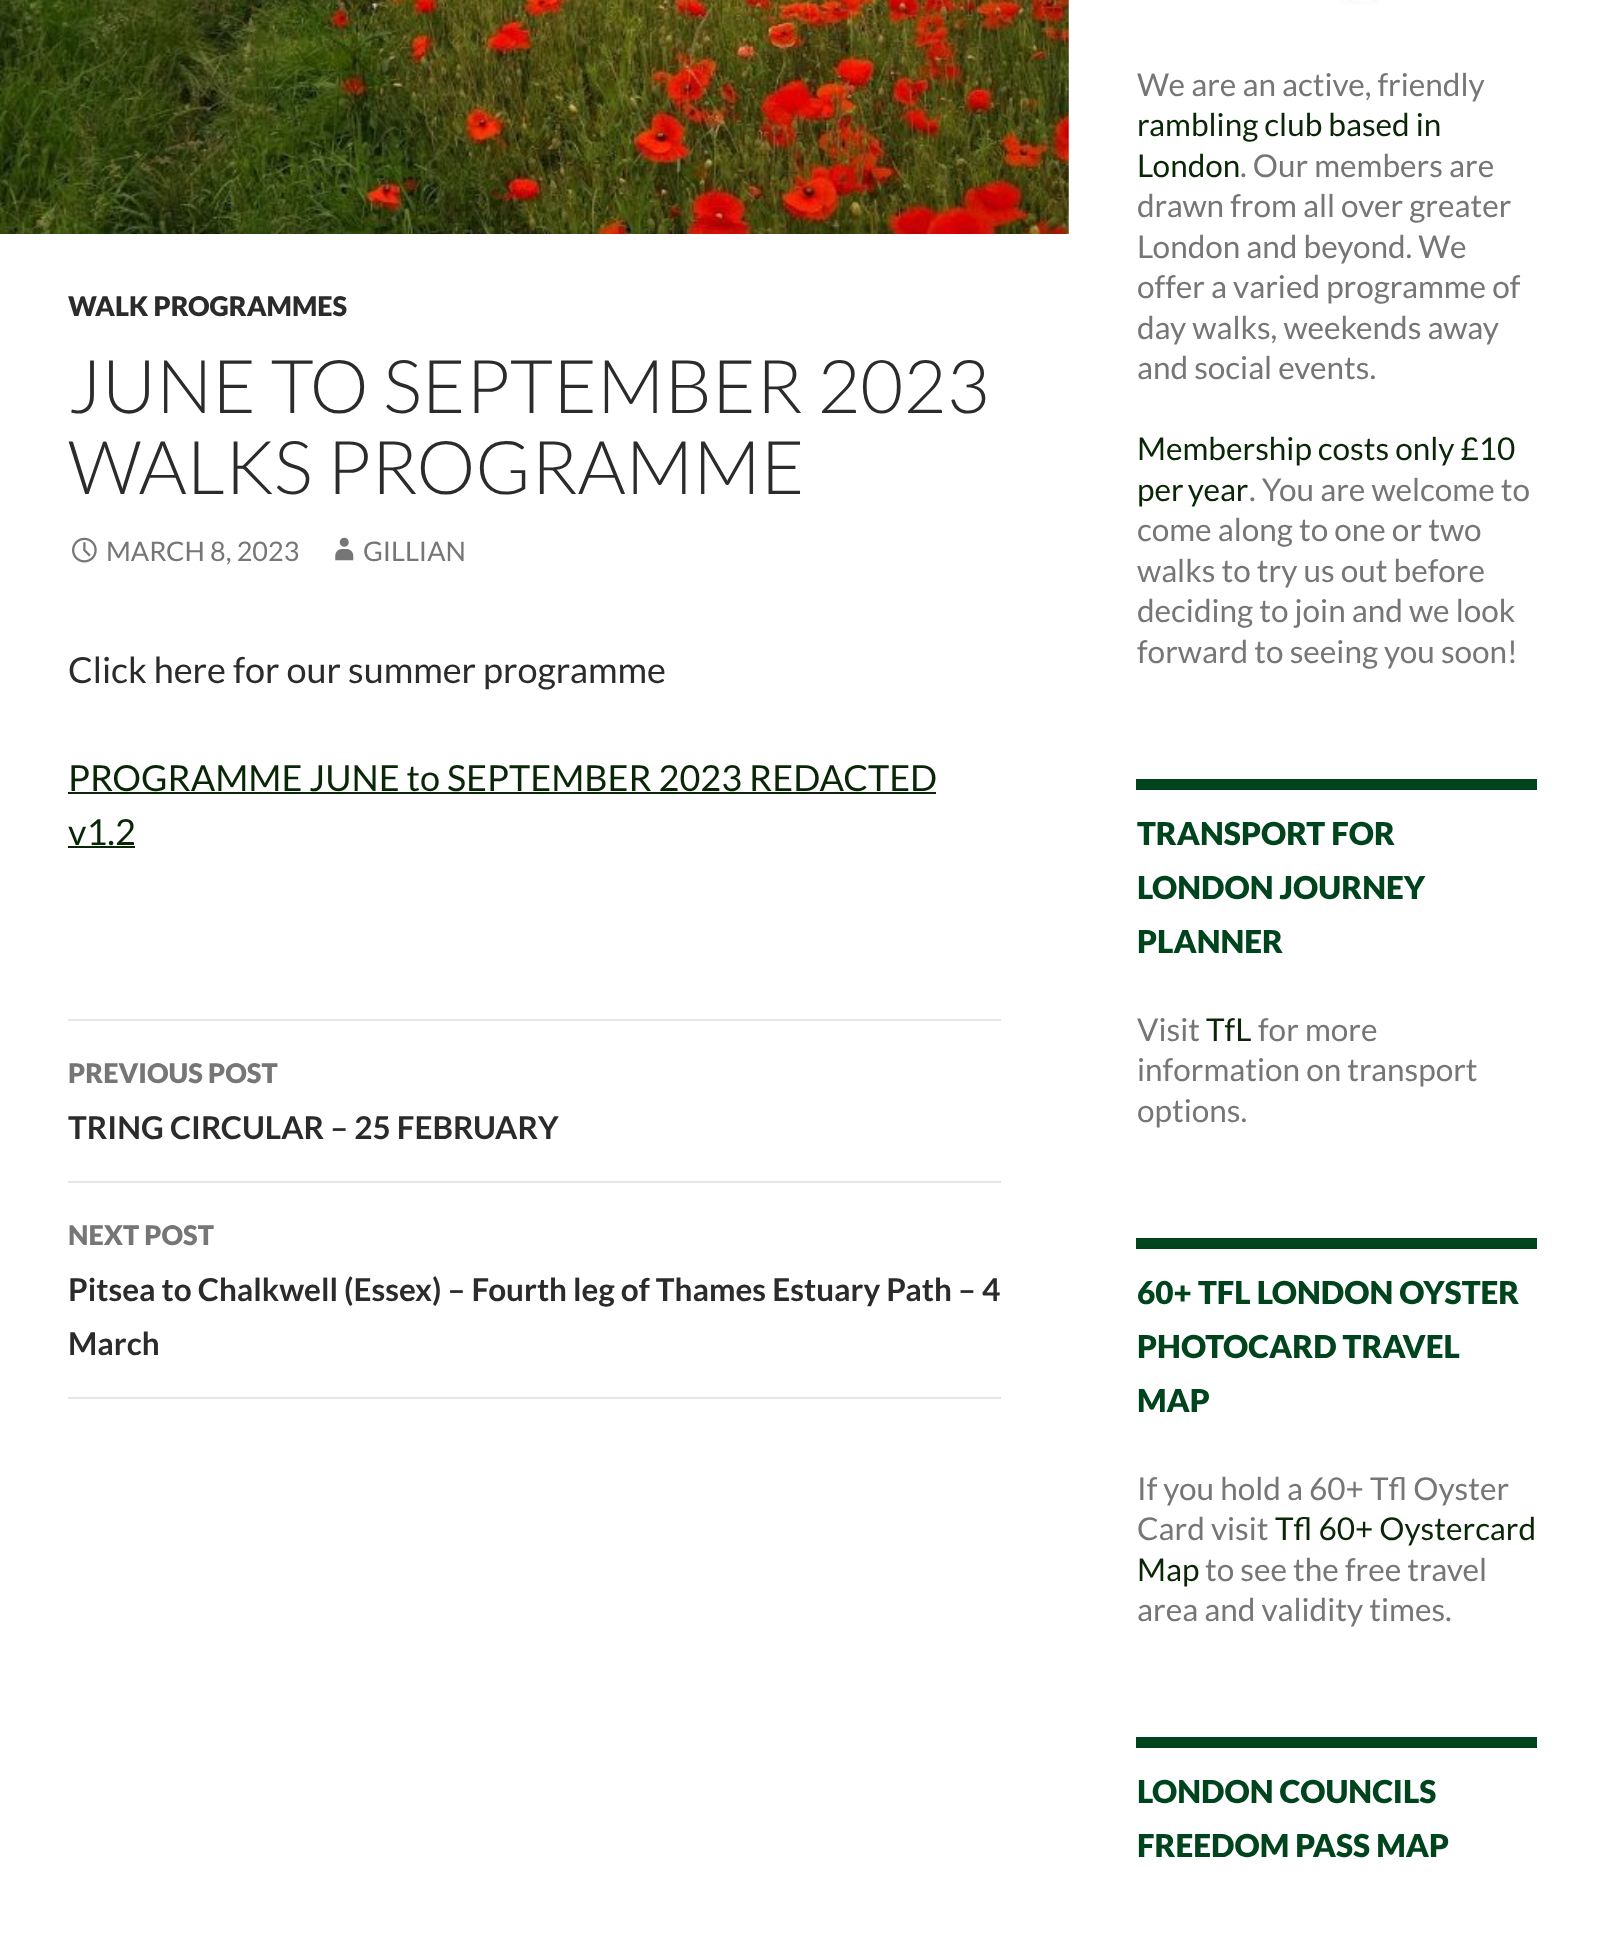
async function draw(canvas) {
  canvas.width = 1604
  canvas.height = 1938
  const ctx = canvas.getContext('2d')
  ctx.miterLimit = 4
  ctx.fontKerning = 'normal'
  async function loadImage(src) {
    const img = new Image()
    img.src = src
    await img.decode()
    return img
  }

  ctx.fillStyle = '#fff'
  ctx.fillRect(0, 0, 1604, 1938)
  ctx.drawImage(await loadImage('image0.png'), 1068, 0, 1, 234)
  ctx.drawImage(await loadImage('image1.png'), 0, 0, 1069, 234)
  ctx.font = '900 27px Lato'
  ctx.fillStyle = '#2b2b2b'
  ctx.fillText('WALK PROGRAMMES', 68, 316)
  ctx.font = '300 74.25px Lato'
  ctx.fillText('JUNE TO SEPTEMBER 2023', 68, 413)
  ctx.fillText('WALKS PROGRAMME', 68, 494)
  ctx.drawImage(await loadImage('image2.png'), 72, 537, 25, 26)
  ctx.font = '27px Lato'
  ctx.fillStyle = '#767676'
  ctx.fillText('MARCH 8, 2023', 106, 561)
  ctx.drawImage(await loadImage('image3.png'), 335, 537, 19, 24)
  ctx.fillText('GILLIAN', 363, 561)
  ctx.font = '36px Lato'
  ctx.fillStyle = '#2b2b2b'
  ctx.fillText('Click here for our summer programme', 68, 683)
  ctx.fillStyle = '#092606'
  ctx.fillText('PROGRAMME JUNE to SEPTEMBER 2023 REDACTED', 68, 791)
  ctx.fillRect(68, 792, 868, 2)
  ctx.fillText('v1.2', 68, 845)
  ctx.fillRect(68, 846, 67, 2)
  ctx.fillStyle = '#e6e6e6'
  ctx.fillRect(68, 1019, 933, 2)
  ctx.fillRect(68, 1181, 933, 2)
  ctx.font = '900 27px Lato'
  ctx.fillStyle = '#767676'
  ctx.fillText('PREVIOUS POST', 68, 1083)
  ctx.font = 'bold 31.5px Lato'
  ctx.fillStyle = '#2b2b2b'
  ctx.fillText('TRING CIRCULAR – 25 FEBRUARY', 68, 1139)
  ctx.fillStyle = '#e6e6e6'
  ctx.fillRect(68, 1397, 933, 2)
  ctx.font = '900 27px Lato'
  ctx.fillStyle = '#767676'
  ctx.fillText('NEXT POST', 68, 1245)
  ctx.font = 'bold 31.5px Lato'
  ctx.fillStyle = '#2b2b2b'
  ctx.fillText('Pitsea to Chalkwell (Essex) – Fourth leg of Thames Estuary Path – 4', 68, 1301)
  ctx.fillText('March', 68, 1355)
  ctx.drawImage(await loadImage('image4.png'), 1339, 0, 40, 5)
  ctx.font = '31.5px Lato'
  ctx.fillStyle = '#767676'
  ctx.fillText('We are an active, friendly', 1137, 96)
  ctx.fillStyle = '#092606'
  ctx.fillText('rambling club based in', 1137, 136)
  ctx.fillText('London', 1137, 177)
  ctx.fillStyle = '#767676'
  ctx.fillText('. Our members are', 1240, 177)
  ctx.fillText('drawn from all over greater', 1137, 217)
  ctx.fillText('London and beyond. We', 1137, 258)
  ctx.fillText('offer a varied programme of', 1137, 298)
  ctx.fillText('day walks, weekends away', 1137, 339)
  ctx.fillText('and social events.', 1137, 379)
  ctx.fillStyle = '#092606'
  ctx.fillText('Membership costs only £10', 1137, 460)
  ctx.wordSpacing = '-2px'
  ctx.fillText('per year', 1137, 501)
  ctx.wordSpacing = '0px'
  ctx.fillStyle = '#767676'
  ctx.fillText('. You are welcome to', 1249, 501)
  ctx.fillText('come along to one or two', 1137, 541)
  ctx.fillText('walks to try us out before', 1137, 582)
  ctx.fillText('deciding to join and we look', 1137, 622)
  ctx.fillText('forward to seeing you soon!', 1137, 663)
  ctx.fillStyle = '#00441d'
  ctx.fillRect(1136, 779, 401, 11)
  ctx.font = '900 31.5px Lato'
  ctx.fillText('TRANSPORT FOR', 1137, 845)
  ctx.fillText('LONDON JOURNEY', 1137, 899)
  ctx.fillText('PLANNER', 1137, 953)
  ctx.font = '31.5px Lato'
  ctx.fillStyle = '#767676'
  ctx.fillText('Visit', 1137, 1041)
  ctx.fillStyle = '#092606'
  ctx.fillText('TfL', 1206, 1041)
  ctx.fillStyle = '#767676'
  ctx.fillText('for more', 1258, 1041)
  ctx.fillText('information on transport', 1137, 1081)
  ctx.fillText('options.', 1137, 1122)
  ctx.fillStyle = '#00441d'
  ctx.fillRect(1136, 1238, 401, 11)
  ctx.font = '900 31.5px Lato'
  ctx.fillText('60+ TFL LONDON OYSTER', 1137, 1304)
  ctx.fillText('PHOTOCARD TRAVEL', 1137, 1358)
  ctx.fillText('MAP', 1137, 1412)
  ctx.font = '31.5px Lato'
  ctx.fillStyle = '#767676'
  ctx.fillText('If you hold a 60+ Tfl Oyster', 1137, 1500)
  ctx.fillText('Card visit', 1137, 1540)
  ctx.fillStyle = '#092606'
  ctx.fillText('Tfl 60+ Oystercard', 1275, 1540)
  ctx.fillText('Map', 1137, 1581)
  ctx.fillStyle = '#767676'
  ctx.fillText('to see the free travel', 1205, 1581)
  ctx.fillText('area and validity times.', 1137, 1621)
  ctx.fillStyle = '#00441d'
  ctx.fillRect(1136, 1737, 401, 11)
  ctx.font = '900 31.5px Lato'
  ctx.fillText('LONDON COUNCILS', 1137, 1803)
  ctx.fillText('FREEDOM PASS MAP', 1137, 1857)
}

draw(document.querySelector('canvas'))
